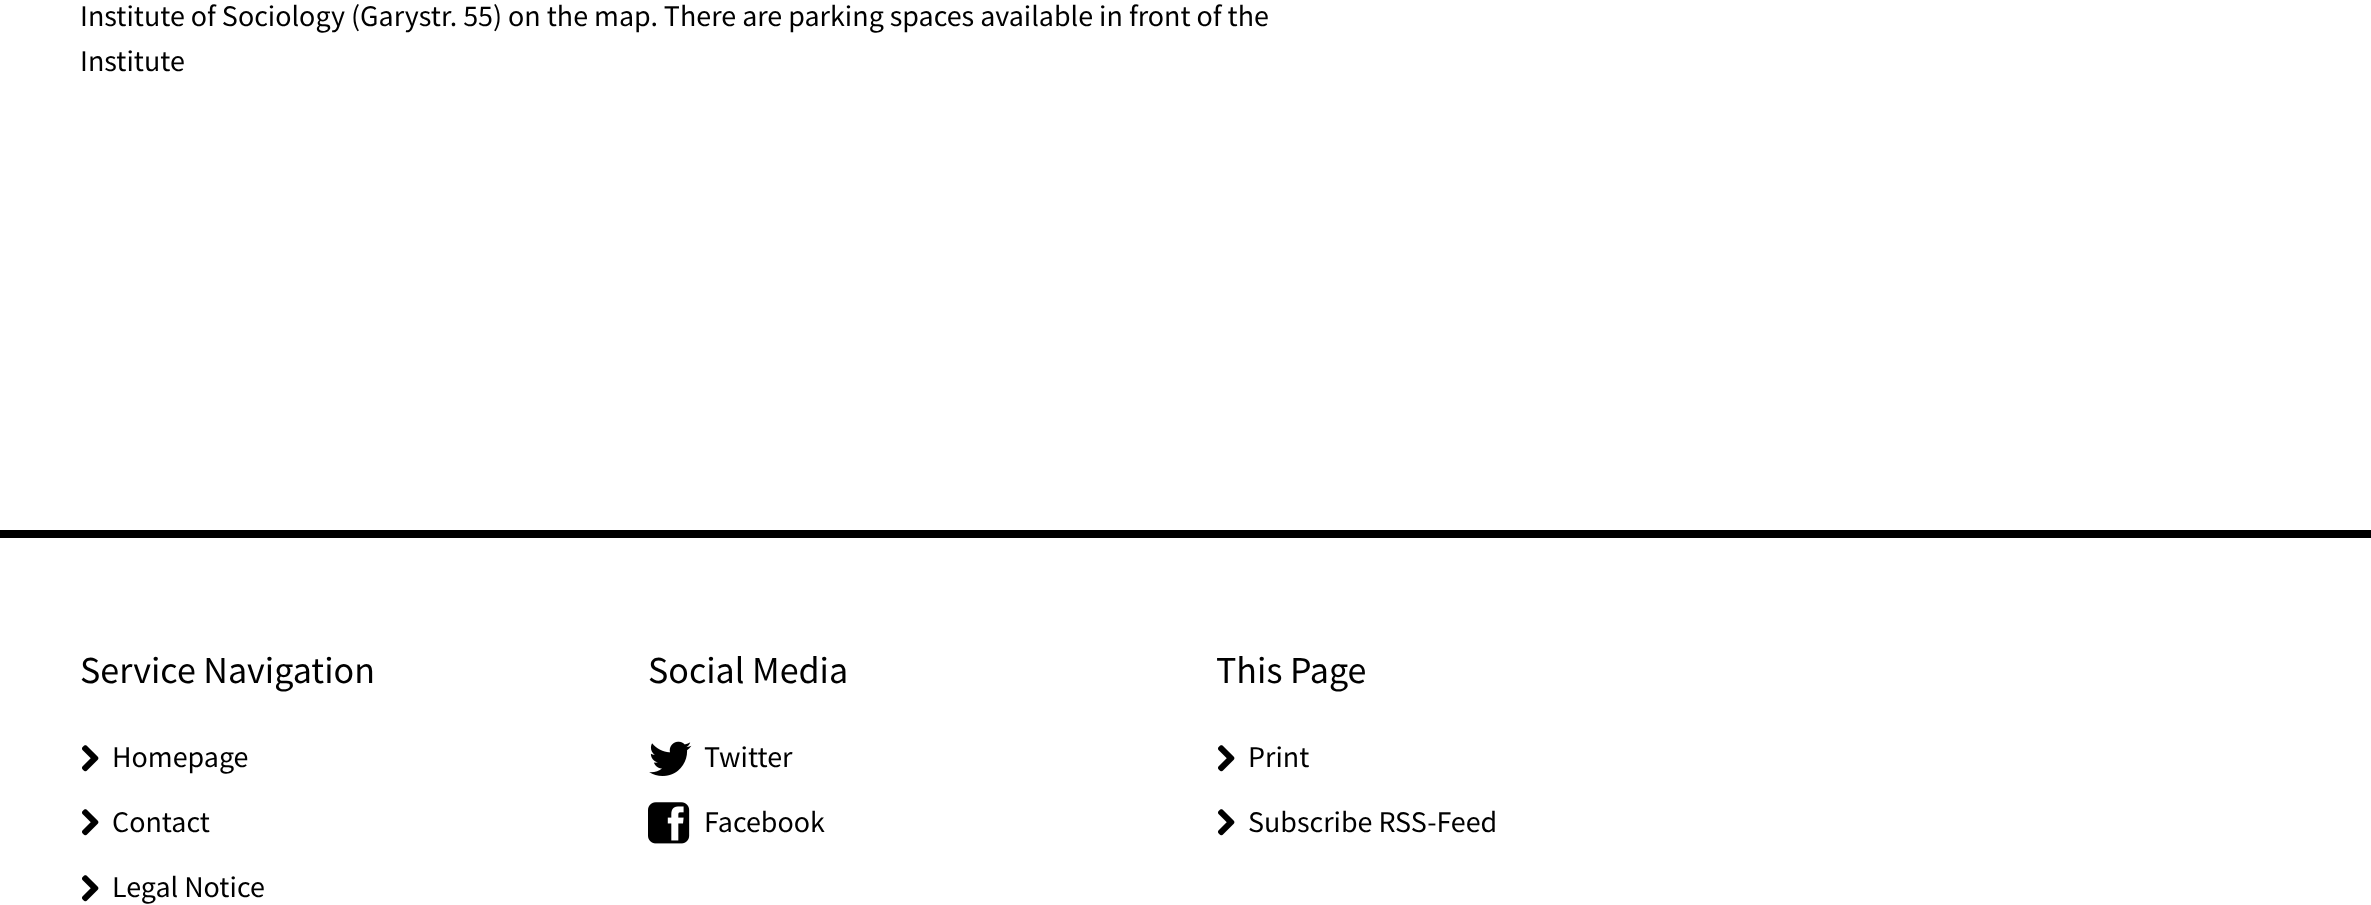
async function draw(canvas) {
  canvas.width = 2371
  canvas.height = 905
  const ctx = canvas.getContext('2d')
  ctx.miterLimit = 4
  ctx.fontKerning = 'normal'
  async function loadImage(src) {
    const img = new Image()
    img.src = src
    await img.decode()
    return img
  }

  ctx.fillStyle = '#fff'
  ctx.fillRect(0, 0, 2371, 905)
  ctx.font = '30px Source Sans Pro'
  ctx.fillStyle = '#000'
  ctx.fillText('Institute of Sociology (Garystr. 55) on the map. There are parking spaces available in front of the', 80, 26)
  ctx.fillText('Institute', 80, 71)
  ctx.fillRect(0, 530, 2371, 8)
  ctx.font = '38px Source Sans Pro'
  ctx.fillText('Service Navigation', 80, 683)
  ctx.drawImage(await loadImage('image0.png'), 82, 745, 17, 27)
  ctx.font = '30px Source Sans Pro'
  ctx.fillText('Homepage', 112, 767)
  ctx.drawImage(await loadImage('image0.png'), 82, 809, 17, 27)
  ctx.fillText('Contact', 112, 832)
  ctx.drawImage(await loadImage('image0.png'), 82, 875, 17, 27)
  ctx.fillText('Legal Notice', 112, 897)
  ctx.font = '38px Source Sans Pro'
  ctx.fillText('Social Media', 648, 683)
  ctx.drawImage(await loadImage('image1.png'), 649, 741, 43, 35)
  ctx.font = '30px Source Sans Pro'
  ctx.fillText('Twitter', 704, 767)
  ctx.drawImage(await loadImage('image2.png'), 648, 802, 42, 42)
  ctx.fillText('Facebook', 704, 832)
  ctx.font = '38px Source Sans Pro'
  ctx.fillText('This Page', 1216, 683)
  ctx.drawImage(await loadImage('image0.png'), 1218, 745, 17, 27)
  ctx.font = '30px Source Sans Pro'
  ctx.fillText('Print', 1248, 767)
  ctx.drawImage(await loadImage('image0.png'), 1218, 809, 17, 27)
  ctx.fillText('Subscribe RSS-Feed', 1248, 832)
}

draw(document.querySelector('canvas'))
